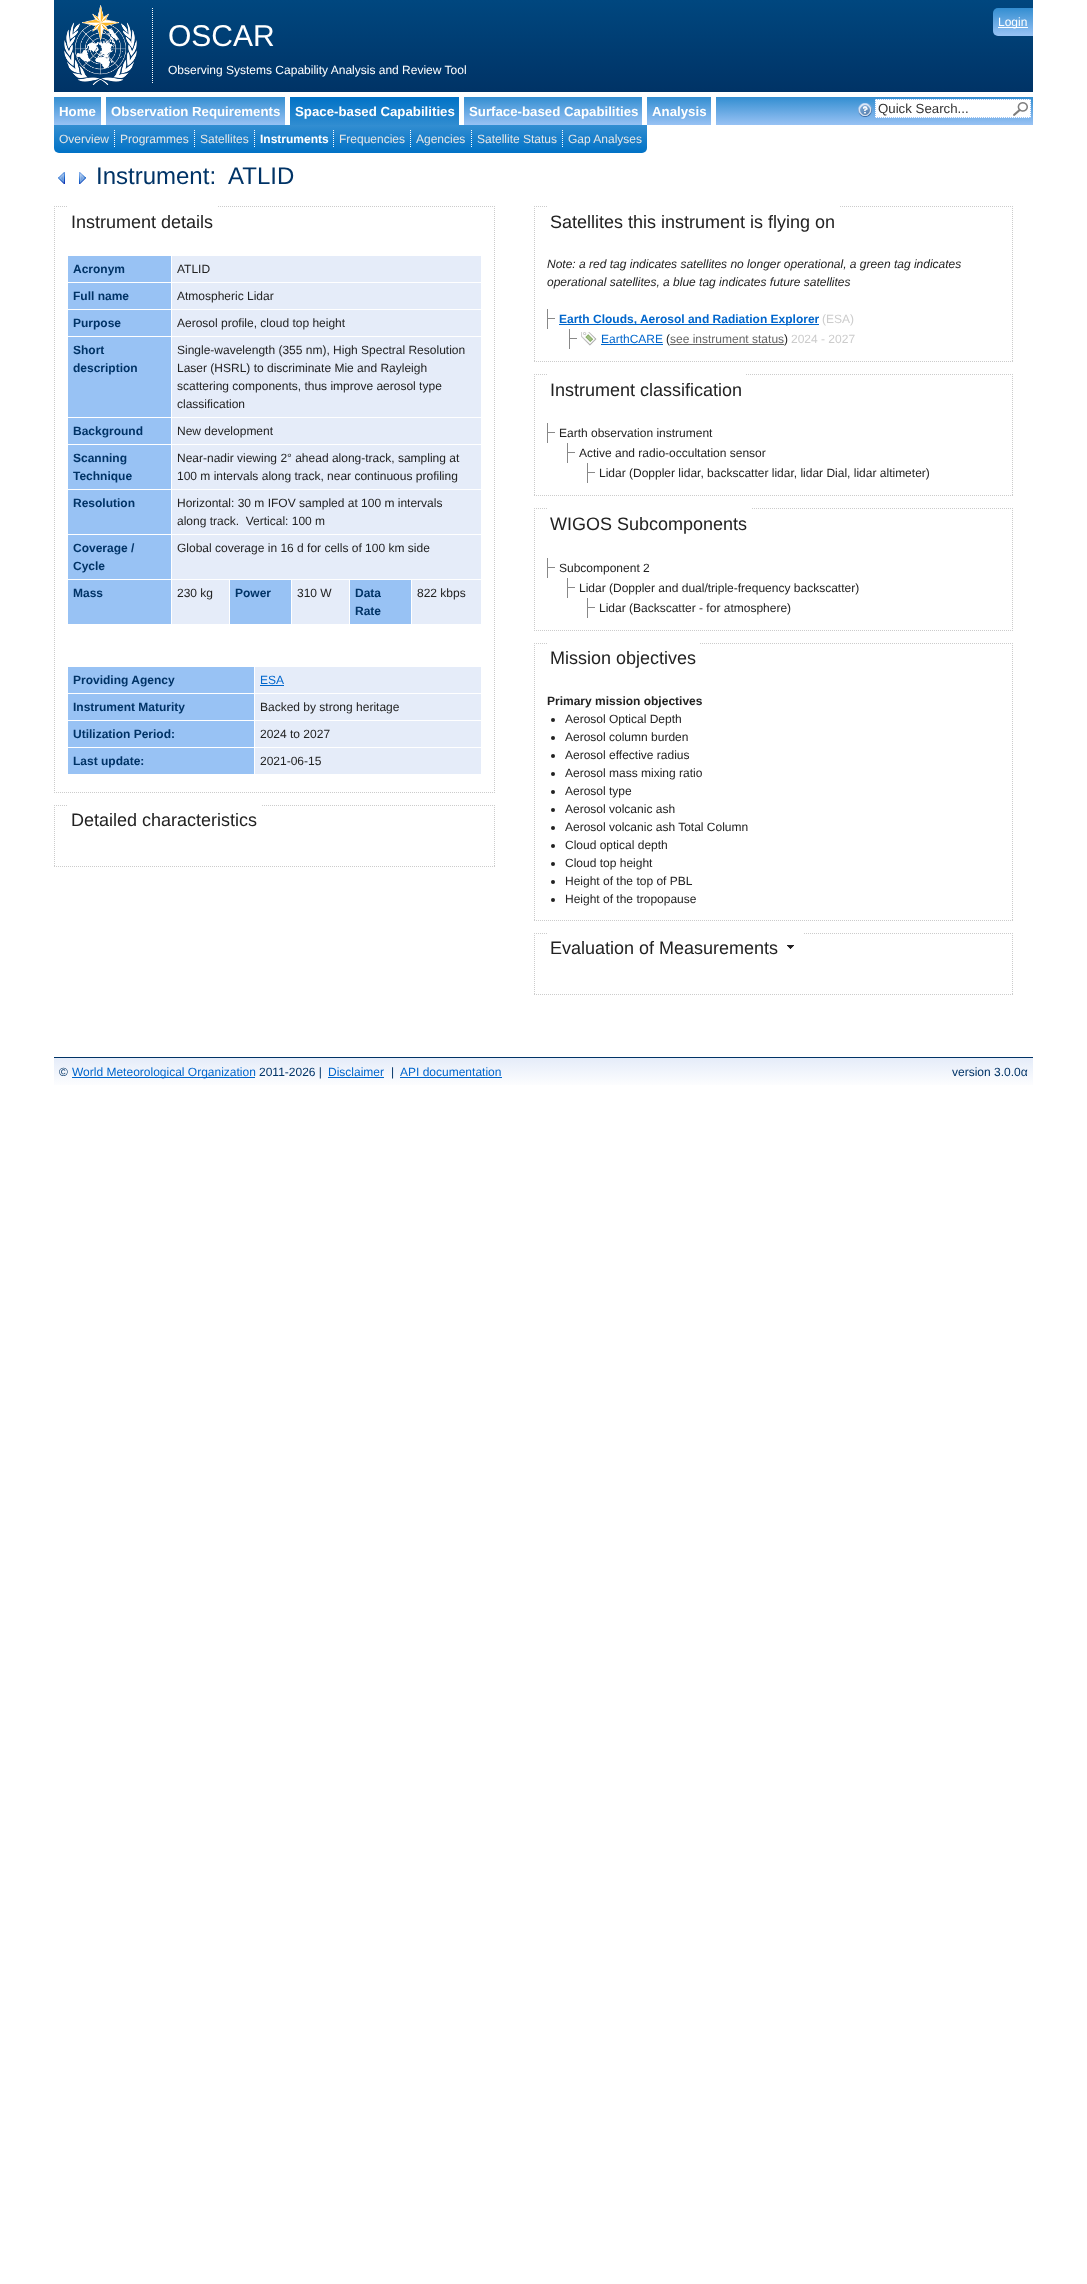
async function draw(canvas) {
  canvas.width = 1087
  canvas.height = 2284
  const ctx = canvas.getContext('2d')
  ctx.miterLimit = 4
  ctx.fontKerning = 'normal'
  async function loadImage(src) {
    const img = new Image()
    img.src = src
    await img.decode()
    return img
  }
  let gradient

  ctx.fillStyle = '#fff'
  ctx.fillRect(0, 0, 1087, 2284)
  gradient = ctx.createLinearGradient(544, 0, 544, 92)
  gradient.addColorStop(0, '#00477f')
  gradient.addColorStop(1, '#036')
  ctx.fillStyle = gradient
  ctx.fillRect(54, 0, 979, 92)
  ctx.drawImage(await loadImage('image0.png'), 64, 5, 73, 80)
  gradient = ctx.createLinearGradient(1013, 8, 1013, 36)
  gradient.addColorStop(0, '#338ed1')
  gradient.addColorStop(1, '#98c2f4')
  ctx.fillStyle = gradient
  ctx.beginPath()
  ctx.roundRect(993, 8, 40, 28, [5, 0, 0, 5])
  ctx.fill()
  ctx.fillStyle = '#fff'
  ctx.fillRect(998, 27, 30, 1)
  ctx.font = '12px Liberation Sans'
  ctx.fillText('Login', 998, 26)
  ctx.beginPath()
  ctx.moveTo(152.5, 8)
  ctx.lineTo(152.5, 84)
  ctx.strokeStyle = '#fff'
  ctx.setLineDash([1, 1])
  ctx.stroke()
  ctx.font = '30px Liberation Sans'
  ctx.fillText('OSCAR', 168, 46)
  ctx.font = '12px Liberation Sans'
  ctx.fillText('Observing Systems Capability Analysis and Review Tool', 168, 74)
  gradient = ctx.createLinearGradient(544, 97, 544, 125)
  gradient.addColorStop(0, '#338ed1')
  gradient.addColorStop(1, '#98c2f4')
  ctx.fillStyle = gradient
  ctx.fillRect(54, 97, 979, 28)
  ctx.fillStyle = '#fff'
  ctx.fillRect(101, 97, 5, 28)
  ctx.font = 'bold 13.25px Liberation Sans'
  ctx.fillText('Home', 59, 116)
  ctx.fillRect(285, 97, 5, 28)
  ctx.fillText('Observation Requirements', 111, 116)
  gradient = ctx.createLinearGradient(375, 97, 375, 127)
  gradient.addColorStop(0, '#0072c6')
  gradient.addColorStop(1, '#338ed1')
  ctx.fillStyle = gradient
  ctx.fillRect(290, 97, 169, 28)
  ctx.fillStyle = '#fff'
  ctx.fillRect(459, 97, 5, 28)
  ctx.fillText('Space-based Capabilities', 295, 116)
  ctx.fillRect(642, 97, 5, 28)
  ctx.fillText('Surface-based Capabilities', 469, 116)
  ctx.fillRect(711, 97, 5, 28)
  ctx.fillText('Analysis', 652, 116)
  ctx.drawImage(await loadImage('image1.png'), 858, 103, 14, 14)
  ctx.fillRect(875, 99, 156, 19)
  ctx.drawImage(await loadImage('image2.png'), 1013, 102, 15, 14)
  ctx.beginPath()
  ctx.moveTo(875, 99.5)
  ctx.lineTo(1031, 99.5)
  ctx.strokeStyle = '#98c2f4'
  ctx.stroke()
  ctx.beginPath()
  ctx.moveTo(1030.5, 99)
  ctx.lineTo(1030.5, 118)
  ctx.stroke()
  ctx.beginPath()
  ctx.moveTo(875, 117.5)
  ctx.lineTo(1031, 117.5)
  ctx.stroke()
  ctx.beginPath()
  ctx.moveTo(875.5, 99)
  ctx.lineTo(875.5, 118)
  ctx.stroke()
  ctx.font = '13.25px Liberation Sans'
  ctx.fillStyle = '#333'
  ctx.fillText('Quick Search...', 878, 113)
  gradient = ctx.createLinearGradient(351, 125, 351, 153)
  gradient.addColorStop(0, '#338ed1')
  gradient.addColorStop(1, '#0072c6')
  ctx.fillStyle = gradient
  ctx.beginPath()
  ctx.roundRect(54, 125, 593, 28, [0, 0, 5, 5])
  ctx.fill()
  ctx.beginPath()
  ctx.moveTo(114.5, 130)
  ctx.lineTo(114.5, 148)
  ctx.strokeStyle = '#fff'
  ctx.stroke()
  ctx.font = '12px Liberation Sans'
  ctx.fillStyle = '#e6e6e6'
  ctx.fillText('Overview', 59, 143)
  ctx.beginPath()
  ctx.moveTo(194.5, 130)
  ctx.lineTo(194.5, 148)
  ctx.stroke()
  ctx.fillText('Programmes', 120, 143)
  ctx.beginPath()
  ctx.moveTo(254.5, 130)
  ctx.lineTo(254.5, 148)
  ctx.stroke()
  ctx.fillText('Satellites', 200, 143)
  ctx.beginPath()
  ctx.moveTo(333.5, 130)
  ctx.lineTo(333.5, 148)
  ctx.stroke()
  ctx.font = 'bold 12px Liberation Sans'
  ctx.fillStyle = '#fff'
  ctx.fillText('Instruments', 260, 143)
  ctx.beginPath()
  ctx.moveTo(410.5, 130)
  ctx.lineTo(410.5, 148)
  ctx.stroke()
  ctx.font = '12px Liberation Sans'
  ctx.fillStyle = '#e6e6e6'
  ctx.fillText('Frequencies', 339, 143)
  ctx.beginPath()
  ctx.moveTo(471.5, 130)
  ctx.lineTo(471.5, 148)
  ctx.stroke()
  ctx.fillText('Agencies', 416, 143)
  ctx.beginPath()
  ctx.moveTo(562.5, 130)
  ctx.lineTo(562.5, 148)
  ctx.stroke()
  ctx.fillText('Satellite Status', 477, 143)
  ctx.fillText('Gap Analyses', 568, 143)
  ctx.drawImage(await loadImage('image3.png'), 58, 172, 7, 12)
  ctx.drawImage(await loadImage('image4.png'), 79, 172, 7, 12)
  ctx.font = '24px Liberation Sans'
  ctx.fillStyle = '#036'
  ctx.fillText('Instrument:  ATLID', 96, 184)
  ctx.beginPath()
  ctx.moveTo(54, 206.5)
  ctx.lineTo(495, 206.5)
  ctx.strokeStyle = '#ccc'
  ctx.stroke()
  ctx.beginPath()
  ctx.moveTo(494.5, 206)
  ctx.lineTo(494.5, 793)
  ctx.stroke()
  ctx.beginPath()
  ctx.moveTo(54, 792.5)
  ctx.lineTo(495, 792.5)
  ctx.stroke()
  ctx.beginPath()
  ctx.moveTo(54.5, 206)
  ctx.lineTo(54.5, 793)
  ctx.stroke()
  ctx.fillStyle = '#fff'
  ctx.fillRect(68, 206, 149, 1)
  ctx.font = '18px Liberation Sans'
  ctx.fillStyle = '#222'
  ctx.fillText('Instrument details', 71, 228)
  ctx.fillStyle = '#e5ecf9'
  ctx.fillRect(172, 256, 309, 368)
  ctx.fillStyle = '#98c2f4'
  ctx.fillRect(68, 256, 103, 26)
  ctx.font = 'bold 12px Liberation Sans'
  ctx.fillStyle = '#036'
  ctx.fillText('Acronym', 73, 273)
  ctx.font = '12px Liberation Sans'
  ctx.fillStyle = '#222'
  ctx.fillText('ATLID', 177, 273)
  ctx.fillStyle = '#98c2f4'
  ctx.fillRect(68, 283, 103, 26)
  ctx.font = 'bold 12px Liberation Sans'
  ctx.fillStyle = '#036'
  ctx.fillText('Full name', 73, 300)
  ctx.fillStyle = '#fff'
  ctx.fillRect(171, 282, 311, 1)
  ctx.font = '12px Liberation Sans'
  ctx.fillStyle = '#222'
  ctx.fillText('Atmospheric Lidar', 177, 300)
  ctx.fillStyle = '#98c2f4'
  ctx.fillRect(68, 310, 103, 26)
  ctx.font = 'bold 12px Liberation Sans'
  ctx.fillStyle = '#036'
  ctx.fillText('Purpose', 73, 327)
  ctx.fillStyle = '#fff'
  ctx.fillRect(171, 309, 311, 1)
  ctx.font = '12px Liberation Sans'
  ctx.fillStyle = '#222'
  ctx.fillText('Aerosol profile, cloud top height', 177, 327)
  ctx.fillStyle = '#98c2f4'
  ctx.fillRect(68, 337, 103, 80)
  ctx.font = 'bold 12px Liberation Sans'
  ctx.fillStyle = '#036'
  ctx.fillText('Short', 73, 354)
  ctx.fillText('description', 73, 372)
  ctx.fillStyle = '#fff'
  ctx.fillRect(171, 336, 311, 1)
  ctx.font = '12px Liberation Sans'
  ctx.fillStyle = '#222'
  ctx.fillText('Single-wavelength (355 nm), High Spectral Resolution', 177, 354)
  ctx.fillText('Laser (HSRL) to discriminate Mie and Rayleigh', 177, 372)
  ctx.fillText('scattering components, thus improve aerosol type', 177, 390)
  ctx.fillText('classification', 177, 408)
  ctx.fillStyle = '#98c2f4'
  ctx.fillRect(68, 418, 103, 26)
  ctx.font = 'bold 12px Liberation Sans'
  ctx.fillStyle = '#036'
  ctx.fillText('Background', 73, 435)
  ctx.fillStyle = '#fff'
  ctx.fillRect(171, 417, 311, 1)
  ctx.font = '12px Liberation Sans'
  ctx.fillStyle = '#222'
  ctx.fillText('New development', 177, 435)
  ctx.fillStyle = '#98c2f4'
  ctx.fillRect(68, 445, 103, 44)
  ctx.font = 'bold 12px Liberation Sans'
  ctx.fillStyle = '#036'
  ctx.fillText('Scanning', 73, 462)
  ctx.fillText('Technique', 73, 480)
  ctx.fillStyle = '#fff'
  ctx.fillRect(171, 444, 311, 1)
  ctx.font = '12px Liberation Sans'
  ctx.fillStyle = '#222'
  ctx.fillText('Near-nadir viewing 2° ahead along-track, sampling at', 177, 462)
  ctx.fillText('100 m intervals along track, near continuous profiling', 177, 480)
  ctx.fillStyle = '#98c2f4'
  ctx.fillRect(68, 490, 103, 44)
  ctx.font = 'bold 12px Liberation Sans'
  ctx.fillStyle = '#036'
  ctx.fillText('Resolution', 73, 507)
  ctx.fillStyle = '#fff'
  ctx.fillRect(171, 489, 311, 1)
  ctx.font = '12px Liberation Sans'
  ctx.fillStyle = '#222'
  ctx.fillText('Horizontal: 30 m IFOV sampled at 100 m intervals', 177, 507)
  ctx.fillText('along track.  Vertical: 100 m', 177, 525)
  ctx.fillStyle = '#98c2f4'
  ctx.fillRect(68, 535, 103, 44)
  ctx.font = 'bold 12px Liberation Sans'
  ctx.fillStyle = '#036'
  ctx.fillText('Coverage /', 73, 552)
  ctx.fillText('Cycle', 73, 570)
  ctx.fillStyle = '#fff'
  ctx.fillRect(171, 534, 311, 1)
  ctx.font = '12px Liberation Sans'
  ctx.fillStyle = '#222'
  ctx.fillText('Global coverage in 16 d for cells of 100 km side', 177, 552)
  ctx.fillStyle = '#98c2f4'
  ctx.fillRect(68, 580, 103, 44)
  ctx.font = 'bold 12px Liberation Sans'
  ctx.fillStyle = '#036'
  ctx.fillText('Mass', 73, 597)
  ctx.fillStyle = '#fff'
  ctx.fillRect(411, 579, 71, 1)
  ctx.fillRect(411, 579, 1, 46)
  ctx.fillRect(349, 579, 63, 1)
  ctx.fillRect(349, 579, 1, 46)
  ctx.fillRect(291, 579, 59, 1)
  ctx.fillRect(291, 579, 1, 46)
  ctx.fillRect(229, 579, 63, 1)
  ctx.fillRect(229, 579, 1, 46)
  ctx.fillRect(171, 579, 59, 1)
  ctx.font = '12px Liberation Sans'
  ctx.fillStyle = '#222'
  ctx.fillText('230 kg', 177, 597)
  ctx.fillStyle = '#98c2f4'
  ctx.fillRect(230, 580, 61, 44)
  ctx.font = 'bold 12px Liberation Sans'
  ctx.fillStyle = '#036'
  ctx.fillText('Power', 235, 597)
  ctx.font = '12px Liberation Sans'
  ctx.fillStyle = '#222'
  ctx.fillText('310 W', 297, 597)
  ctx.fillStyle = '#98c2f4'
  ctx.fillRect(350, 580, 61, 44)
  ctx.font = 'bold 12px Liberation Sans'
  ctx.fillStyle = '#036'
  ctx.fillText('Data', 355, 597)
  ctx.fillText('Rate', 355, 615)
  ctx.font = '12px Liberation Sans'
  ctx.fillStyle = '#222'
  ctx.fillText('822 kbps', 417, 597)
  ctx.fillStyle = '#e5ecf9'
  ctx.fillRect(255, 667, 226, 107)
  ctx.fillStyle = '#98c2f4'
  ctx.fillRect(68, 667, 186, 26)
  ctx.font = 'bold 12px Liberation Sans'
  ctx.fillStyle = '#036'
  ctx.fillText('Providing Agency', 73, 684)
  ctx.font = '12px Liberation Sans'
  ctx.fillStyle = '#06c'
  ctx.fillText('ESA', 260, 684)
  ctx.fillRect(260, 685, 24, 1)
  ctx.fillStyle = '#98c2f4'
  ctx.fillRect(68, 694, 186, 26)
  ctx.font = 'bold 12px Liberation Sans'
  ctx.fillStyle = '#036'
  ctx.fillText('Instrument Maturity', 73, 711)
  ctx.fillStyle = '#fff'
  ctx.fillRect(254, 693, 228, 1)
  ctx.font = '12px Liberation Sans'
  ctx.fillStyle = '#222'
  ctx.fillText('Backed by strong heritage', 260, 711)
  ctx.fillStyle = '#98c2f4'
  ctx.fillRect(68, 721, 186, 26)
  ctx.font = 'bold 12px Liberation Sans'
  ctx.fillStyle = '#036'
  ctx.fillText('Utilization Period:', 73, 738)
  ctx.fillStyle = '#fff'
  ctx.fillRect(254, 720, 228, 1)
  ctx.font = '12px Liberation Sans'
  ctx.fillStyle = '#222'
  ctx.fillText('2024 to 2027', 260, 738)
  ctx.fillStyle = '#98c2f4'
  ctx.fillRect(68, 748, 186, 26)
  ctx.font = 'bold 12px Liberation Sans'
  ctx.fillStyle = '#036'
  ctx.fillText('Last update:', 73, 765)
  ctx.fillStyle = '#fff'
  ctx.fillRect(254, 747, 228, 1)
  ctx.font = '12px Liberation Sans'
  ctx.fillStyle = '#222'
  ctx.fillText('2021-06-15', 260, 765)
  ctx.beginPath()
  ctx.moveTo(54, 805.5)
  ctx.lineTo(495, 805.5)
  ctx.stroke()
  ctx.beginPath()
  ctx.moveTo(494.5, 805)
  ctx.lineTo(494.5, 867)
  ctx.stroke()
  ctx.beginPath()
  ctx.moveTo(54, 866.5)
  ctx.lineTo(495, 866.5)
  ctx.stroke()
  ctx.beginPath()
  ctx.moveTo(54.5, 805)
  ctx.lineTo(54.5, 867)
  ctx.stroke()
  ctx.fillStyle = '#fff'
  ctx.fillRect(68, 805, 193, 1)
  ctx.font = '18px Liberation Sans'
  ctx.fillStyle = '#222'
  ctx.fillText('Detailed characteristics', 71, 826)
  ctx.beginPath()
  ctx.moveTo(534, 206.5)
  ctx.lineTo(1013, 206.5)
  ctx.stroke()
  ctx.beginPath()
  ctx.moveTo(1012.5, 206)
  ctx.lineTo(1012.5, 362)
  ctx.stroke()
  ctx.beginPath()
  ctx.moveTo(534, 361.5)
  ctx.lineTo(1013, 361.5)
  ctx.stroke()
  ctx.beginPath()
  ctx.moveTo(534.5, 206)
  ctx.lineTo(534.5, 362)
  ctx.stroke()
  ctx.fillStyle = '#fff'
  ctx.fillRect(548, 206, 291, 1)
  ctx.fillStyle = '#222'
  ctx.fillText('Satellites this instrument is flying on', 550, 228)
  ctx.font = 'italic 12px Liberation Sans'
  ctx.fillText('Note: a red tag indicates satellites no longer operational, a green tag indicates', 547, 268)
  ctx.fillText('operational satellites, a blue tag indicates future satellites', 547, 286)
  ctx.drawImage(await loadImage('image5.png'), 547, 309, 8, 20)
  ctx.fillStyle = '#06c'
  ctx.fillRect(559, 324, 260, 1)
  ctx.font = 'bold 12px Liberation Sans'
  ctx.fillText('Earth Clouds, Aerosol and Radiation Explorer', 559, 323)
  ctx.font = '12px Liberation Sans'
  ctx.fillStyle = '#ccc'
  ctx.fillText('(ESA)', 822, 323)
  ctx.drawImage(await loadImage('image5.png'), 569, 329, 8, 20)
  ctx.drawImage(await loadImage('image6.png'), 581, 332, 16, 14)
  ctx.fillStyle = '#06c'
  ctx.fillText('EarthCARE', 601, 343)
  ctx.fillRect(601, 344, 62, 1)
  ctx.fillStyle = '#222'
  ctx.fillText('(', 666, 343)
  ctx.fillStyle = '#666'
  ctx.fillText('see instrument status', 670, 343)
  ctx.fillRect(670, 344, 114, 1)
  ctx.fillStyle = '#222'
  ctx.fillText(')', 784, 343)
  ctx.fillStyle = '#ccc'
  ctx.fillText('2024 - 2027', 791, 343)
  ctx.beginPath()
  ctx.moveTo(534, 374.5)
  ctx.lineTo(1013, 374.5)
  ctx.stroke()
  ctx.beginPath()
  ctx.moveTo(1012.5, 374)
  ctx.lineTo(1012.5, 496)
  ctx.stroke()
  ctx.beginPath()
  ctx.moveTo(534, 495.5)
  ctx.lineTo(1013, 495.5)
  ctx.stroke()
  ctx.beginPath()
  ctx.moveTo(534.5, 374)
  ctx.lineTo(534.5, 496)
  ctx.stroke()
  ctx.fillStyle = '#fff'
  ctx.fillRect(548, 374, 197, 1)
  ctx.font = '18px Liberation Sans'
  ctx.fillStyle = '#222'
  ctx.fillText('Instrument classification', 550, 396)
  ctx.drawImage(await loadImage('image5.png'), 547, 423, 8, 20)
  ctx.font = '12px Liberation Sans'
  ctx.fillText('Earth observation instrument', 559, 437)
  ctx.drawImage(await loadImage('image5.png'), 567, 443, 8, 20)
  ctx.fillText('Active and radio-occultation sensor', 579, 457)
  ctx.drawImage(await loadImage('image5.png'), 587, 463, 8, 20)
  ctx.fillText('Lidar (Doppler lidar, backscatter lidar, lidar Dial, lidar altimeter)', 599, 477)
  ctx.beginPath()
  ctx.moveTo(534, 508.5)
  ctx.lineTo(1013, 508.5)
  ctx.stroke()
  ctx.beginPath()
  ctx.moveTo(1012.5, 508)
  ctx.lineTo(1012.5, 631)
  ctx.stroke()
  ctx.beginPath()
  ctx.moveTo(534, 630.5)
  ctx.lineTo(1013, 630.5)
  ctx.stroke()
  ctx.beginPath()
  ctx.moveTo(534.5, 508)
  ctx.lineTo(534.5, 631)
  ctx.stroke()
  ctx.fillStyle = '#fff'
  ctx.fillRect(548, 508, 203, 1)
  ctx.font = '18px Liberation Sans'
  ctx.fillStyle = '#222'
  ctx.fillText('WIGOS Subcomponents', 550, 530)
  ctx.drawImage(await loadImage('image5.png'), 547, 558, 8, 20)
  ctx.font = '12px Liberation Sans'
  ctx.fillText('Subcomponent 2', 559, 572)
  ctx.drawImage(await loadImage('image5.png'), 567, 578, 8, 20)
  ctx.fillText('Lidar (Doppler and dual/triple-frequency backscatter)', 579, 592)
  ctx.drawImage(await loadImage('image5.png'), 587, 598, 8, 20)
  ctx.fillText('Lidar (Backscatter - for atmosphere)', 599, 612)
  ctx.beginPath()
  ctx.moveTo(534, 643.5)
  ctx.lineTo(1013, 643.5)
  ctx.stroke()
  ctx.beginPath()
  ctx.moveTo(1012.5, 643)
  ctx.lineTo(1012.5, 921)
  ctx.stroke()
  ctx.beginPath()
  ctx.moveTo(534, 920.5)
  ctx.lineTo(1013, 920.5)
  ctx.stroke()
  ctx.beginPath()
  ctx.moveTo(534.5, 643)
  ctx.lineTo(534.5, 921)
  ctx.stroke()
  ctx.fillStyle = '#fff'
  ctx.fillRect(548, 643, 151, 1)
  ctx.font = '18px Liberation Sans'
  ctx.fillStyle = '#222'
  ctx.fillText('Mission objectives', 550, 664)
  ctx.font = 'bold 12px Liberation Sans'
  ctx.fillText('Primary mission objectives', 547, 705)
  ctx.beginPath()
  ctx.arc(553, 720, 2, 0, 2 * Math.PI)
  ctx.fill()
  ctx.font = '12px Liberation Sans'
  ctx.fillText('Aerosol Optical Depth', 565, 723)
  ctx.beginPath()
  ctx.arc(553, 738, 2, 0, 2 * Math.PI)
  ctx.fill()
  ctx.fillText('Aerosol column burden', 565, 741)
  ctx.beginPath()
  ctx.arc(553, 756, 2, 0, 2 * Math.PI)
  ctx.fill()
  ctx.fillText('Aerosol effective radius', 565, 759)
  ctx.beginPath()
  ctx.arc(553, 774, 2, 0, 2 * Math.PI)
  ctx.fill()
  ctx.fillText('Aerosol mass mixing ratio', 565, 777)
  ctx.beginPath()
  ctx.arc(553, 792, 2, 0, 2 * Math.PI)
  ctx.fill()
  ctx.fillText('Aerosol type', 565, 795)
  ctx.beginPath()
  ctx.arc(553, 810, 2, 0, 2 * Math.PI)
  ctx.fill()
  ctx.fillText('Aerosol volcanic ash', 565, 813)
  ctx.beginPath()
  ctx.arc(553, 828, 2, 0, 2 * Math.PI)
  ctx.fill()
  ctx.fillText('Aerosol volcanic ash Total Column', 565, 831)
  ctx.beginPath()
  ctx.arc(553, 846, 2, 0, 2 * Math.PI)
  ctx.fill()
  ctx.fillText('Cloud optical depth', 565, 849)
  ctx.beginPath()
  ctx.arc(553, 864, 2, 0, 2 * Math.PI)
  ctx.fill()
  ctx.fillText('Cloud top height', 565, 867)
  ctx.beginPath()
  ctx.arc(553, 882, 2, 0, 2 * Math.PI)
  ctx.fill()
  ctx.fillText('Height of the top of PBL', 565, 885)
  ctx.beginPath()
  ctx.arc(553, 900, 2, 0, 2 * Math.PI)
  ctx.fill()
  ctx.fillText('Height of the tropopause', 565, 903)
  ctx.beginPath()
  ctx.moveTo(534, 933.5)
  ctx.lineTo(1013, 933.5)
  ctx.stroke()
  ctx.beginPath()
  ctx.moveTo(1012.5, 933)
  ctx.lineTo(1012.5, 995)
  ctx.stroke()
  ctx.beginPath()
  ctx.moveTo(534, 994.5)
  ctx.lineTo(1013, 994.5)
  ctx.stroke()
  ctx.beginPath()
  ctx.moveTo(534.5, 933)
  ctx.lineTo(534.5, 995)
  ctx.stroke()
  ctx.fillStyle = '#fff'
  ctx.fillRect(548, 933, 255, 1)
  ctx.font = '18px Liberation Sans'
  ctx.fillStyle = '#222'
  ctx.fillText('Evaluation of Measurements', 550, 954)
  ctx.drawImage(await loadImage('image7.png'), 787, 945, 7, 4)
  gradient = ctx.createLinearGradient(544, 1058, 544, 1088)
  gradient.addColorStop(0, '#e5ecf9')
  gradient.addColorStop(1, '#fff')
  ctx.fillStyle = gradient
  ctx.fillRect(54, 1058, 979, 27)
  ctx.fillStyle = '#036'
  ctx.fillRect(54, 1057, 979, 1)
  ctx.font = '12px Liberation Sans'
  ctx.fillText('©', 59, 1076)
  ctx.fillStyle = '#06c'
  ctx.fillRect(72, 1077, 183, 1)
  ctx.fillText('World Meteorological Organization', 72, 1076)
  ctx.fillStyle = '#036'
  ctx.fillText('2011-2026 |', 259, 1076)
  ctx.fillStyle = '#06c'
  ctx.fillText('Disclaimer', 328, 1076)
  ctx.fillRect(328, 1077, 56, 1)
  ctx.fillStyle = '#036'
  ctx.fillText('|', 391, 1076)
  ctx.fillStyle = '#06c'
  ctx.fillText('API documentation', 400, 1076)
  ctx.fillRect(400, 1077, 102, 1)
  ctx.fillStyle = '#036'
  ctx.fillText('version 3.0.0α', 952, 1076)
}

draw(document.querySelector('canvas'))
